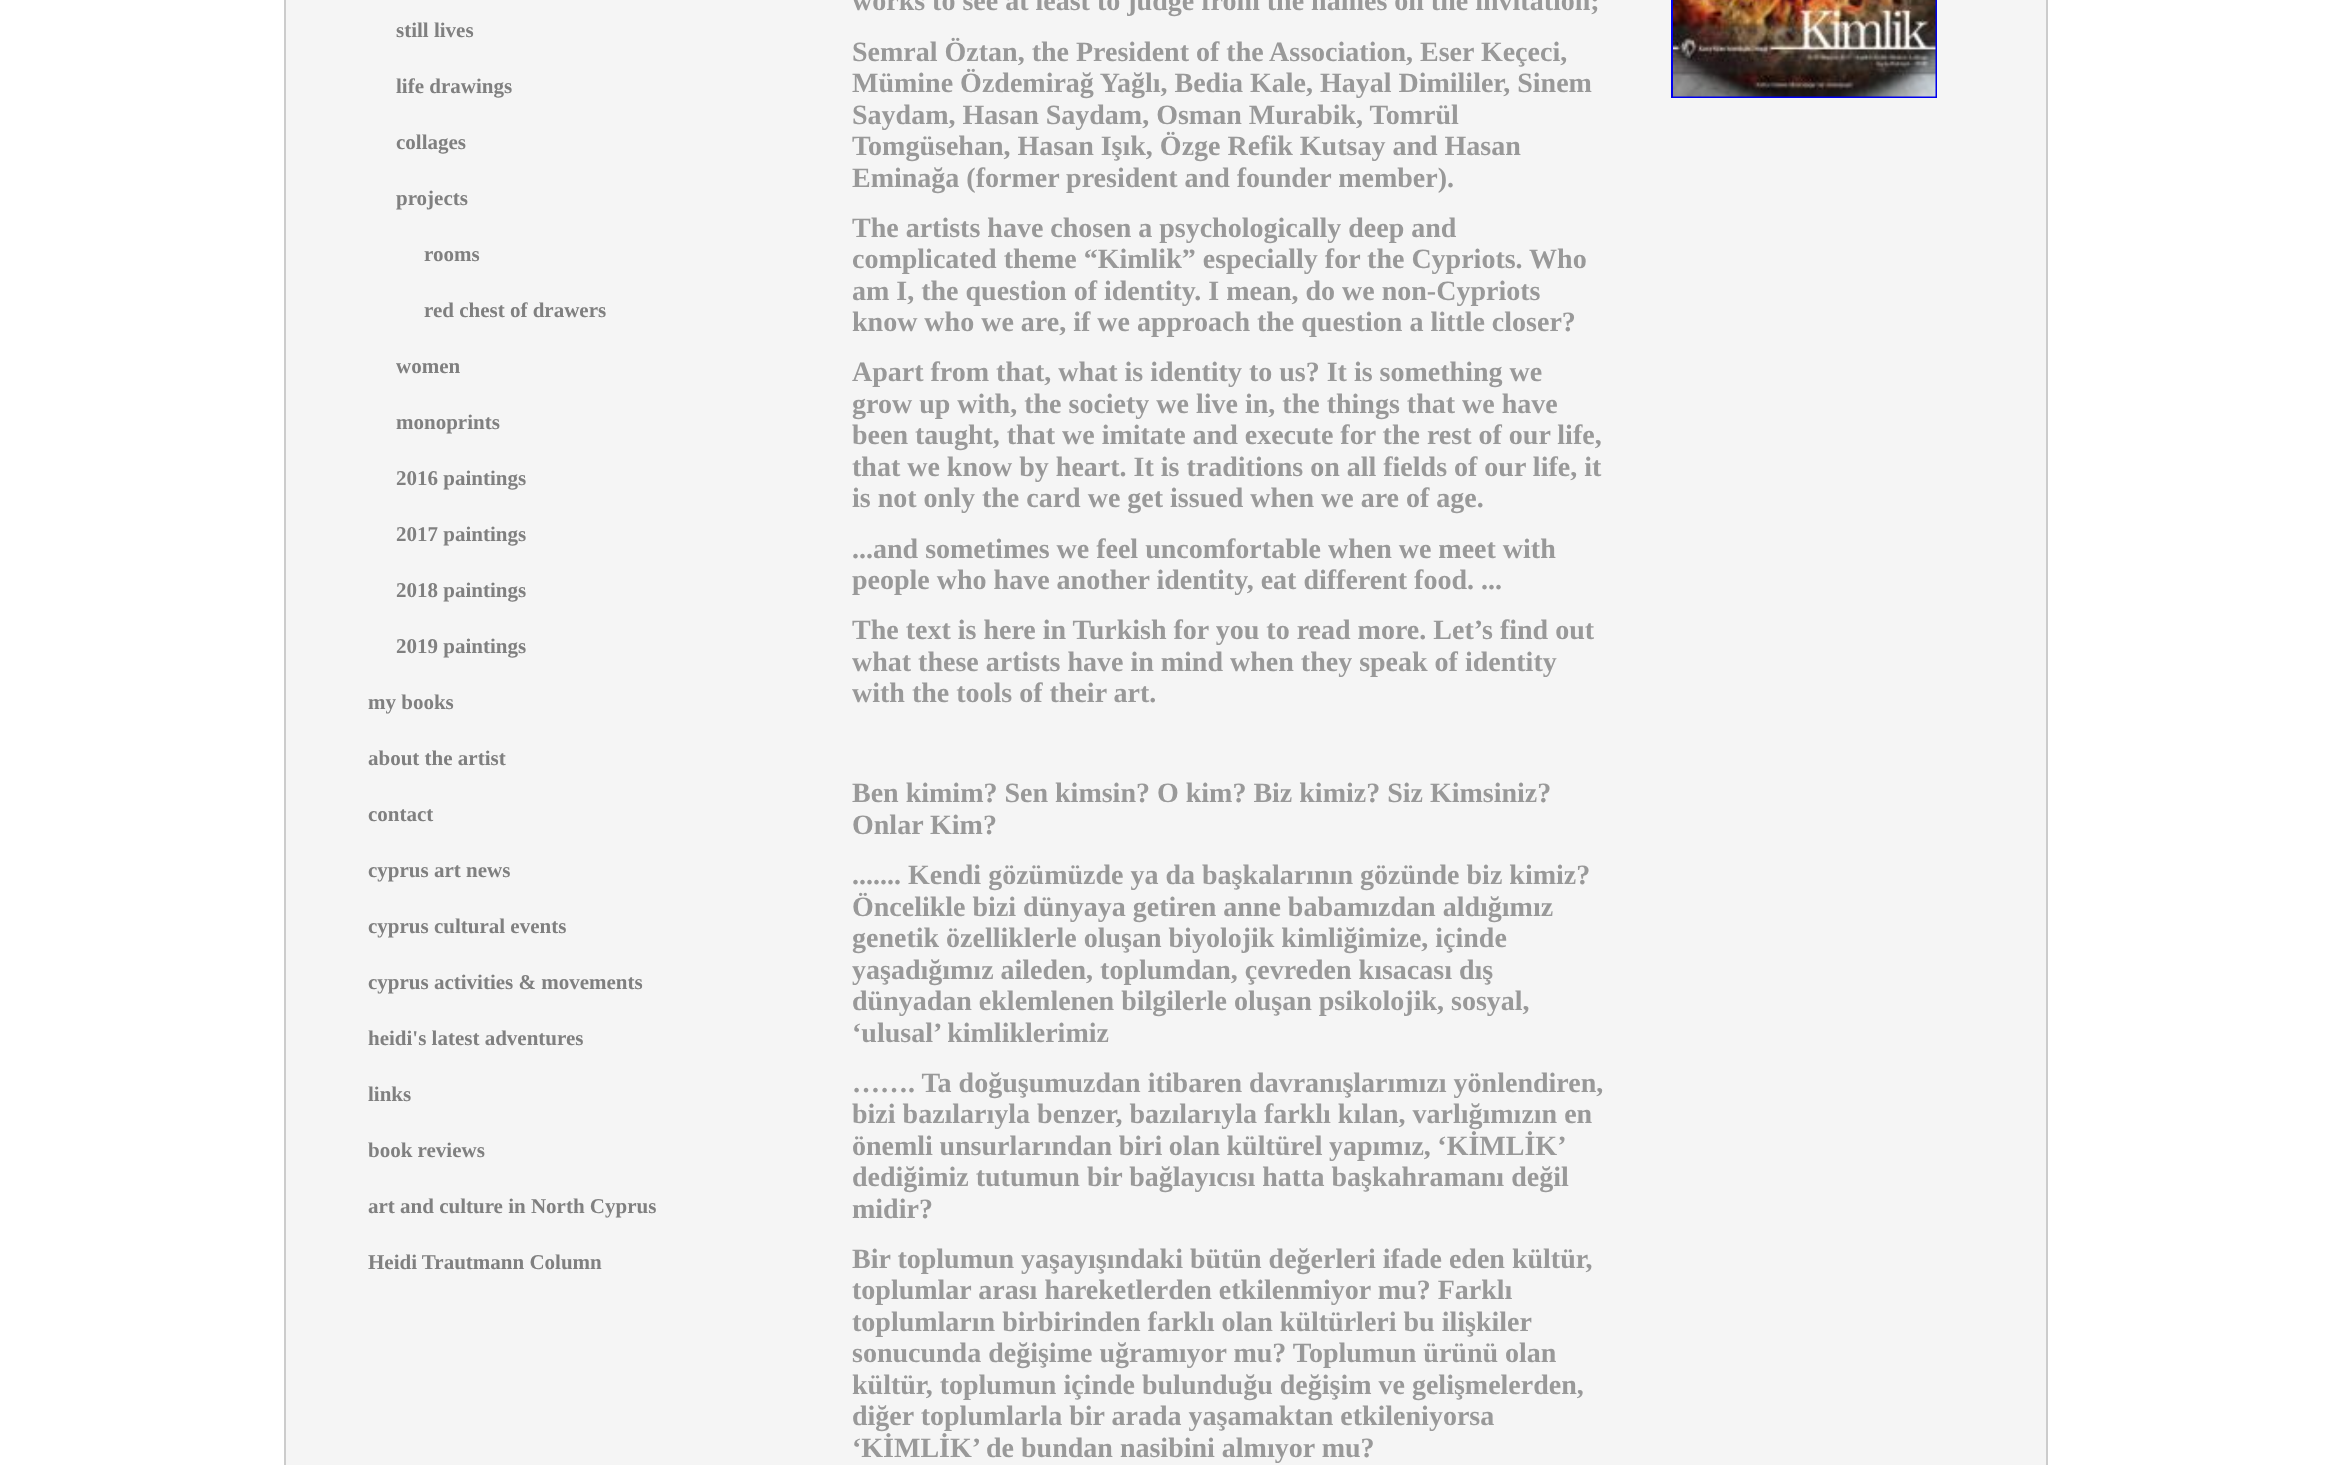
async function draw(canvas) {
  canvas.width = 2330
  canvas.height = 1465
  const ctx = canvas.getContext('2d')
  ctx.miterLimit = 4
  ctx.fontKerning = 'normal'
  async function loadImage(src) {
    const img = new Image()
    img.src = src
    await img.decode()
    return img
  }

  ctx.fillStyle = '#fff'
  ctx.fillRect(0, 0, 2330, 1465)
  ctx.fillStyle = '#f5f5f5'
  ctx.beginPath()
  ctx.rect(285, -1, 1762, 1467)
  ctx.fill()
  ctx.strokeStyle = '#ccc'
  ctx.lineWidth = 2
  ctx.stroke()
  ctx.font = 'bold 21px Liberation Serif'
  ctx.fillStyle = '#808080'
  ctx.fillText('still lives', 396, 37)
  ctx.fillText('life drawings', 396, 93)
  ctx.fillText('collages', 396, 149)
  ctx.fillText('projects', 396, 205)
  ctx.fillText('rooms', 424, 261)
  ctx.fillText('red chest of drawers', 424, 317)
  ctx.fillText('women', 396, 373)
  ctx.fillText('monoprints', 396, 429)
  ctx.fillText('2016 paintings', 396, 485)
  ctx.fillText('2017 paintings', 396, 541)
  ctx.fillText('2018 paintings', 396, 597)
  ctx.fillText('2019 paintings', 396, 653)
  ctx.fillText('my books', 368, 709)
  ctx.fillText('about the artist', 368, 765)
  ctx.fillText('contact', 368, 821)
  ctx.fillText('cyprus art news', 368, 877)
  ctx.fillText('cyprus cultural events', 368, 933)
  ctx.fillText('cyprus activities & movements', 368, 989)
  ctx.fillText('heidi\'s latest adventures', 368, 1045)
  ctx.fillText('links', 368, 1101)
  ctx.fillText('book reviews', 368, 1157)
  ctx.fillText('art and culture in North Cyprus', 368, 1213)
  ctx.fillText('Heidi Trautmann Column', 368, 1269)
  ctx.font = 'bold 28px Liberation Serif'
  ctx.fillStyle = '#999'
  ctx.fillText('works to see at least to judge from the names on the invitation;', 852, 10)
  ctx.fillText('Semral Öztan, the President of the Association, Eser Keçeci,', 852, 61)
  ctx.fillText('Mümine Özdemirağ Yağlı, Bedia Kale, Hayal Dimililer, Sinem', 852, 92)
  ctx.fillText('Saydam, Hasan Saydam, Osman Murabik, Tomrül', 852, 124)
  ctx.fillText('Tomgüsehan, Hasan Işık, Özge Refik Kutsay and Hasan', 852, 155)
  ctx.fillText('Eminağa (former president and founder member).', 852, 187)
  ctx.fillText('The artists have chosen a psychologically deep and', 852, 237)
  ctx.fillText('complicated theme “Kimlik” especially for the Cypriots. Who', 852, 268)
  ctx.fillText('am I, the question of identity. I mean, do we non-Cypriots', 852, 300)
  ctx.fillText('know who we are, if we approach the question a little closer?', 852, 331)
  ctx.fillText('Apart from that, what is identity to us? It is something we', 852, 381)
  ctx.fillText('grow up with, the society we live in, the things that we have', 852, 413)
  ctx.fillText('been taught, that we imitate and execute for the rest of our life,', 852, 444)
  ctx.fillText('that we know by heart. It is traditions on all fields of our life, it', 852, 476)
  ctx.fillText('is not only the card we get issued when we are of age.', 852, 507)
  ctx.fillText('...and sometimes we feel uncomfortable when we meet with', 852, 558)
  ctx.fillText('people who have another identity, eat different food. ...', 852, 589)
  ctx.fillText('The text is here in Turkish for you to read more. Let’s find out', 852, 639)
  ctx.fillText('what these artists have in mind when they speak of identity', 852, 671)
  ctx.fillText('with the tools of their art.', 852, 702)
  ctx.fillText('Ben kimim? Sen kimsin? O kim? Biz kimiz? Siz Kimsiniz?', 852, 802)
  ctx.fillText('Onlar Kim?', 852, 834)
  ctx.fillText('....... Kendi gözümüzde ya da başkalarının gözünde biz kimiz?', 852, 884)
  ctx.fillText('Öncelikle bizi dünyaya getiren anne babamızdan aldığımız', 852, 916)
  ctx.fillText('genetik özelliklerle oluşan biyolojik kimliğimize, içinde', 852, 947)
  ctx.fillText('yaşadığımız aileden, toplumdan, çevreden kısacası dış', 852, 979)
  ctx.fillText('dünyadan eklemlenen bilgilerle oluşan psikolojik, sosyal,', 852, 1010)
  ctx.fillText('‘ulusal’ kimliklerimiz', 852, 1042)
  ctx.fillText('……. Ta doğuşumuzdan itibaren davranışlarımızı yönlendiren,', 852, 1092)
  ctx.fillText('bizi bazılarıyla benzer, bazılarıyla farklı kılan, varlığımızın en', 852, 1123)
  ctx.wordSpacing = '-0.5px'
  ctx.fillText('önemli unsurlarından biri olan kültürel yapımız, ‘KİMLİK’', 852, 1155)
  ctx.wordSpacing = '0px'
  ctx.fillText('dediğimiz tutumun bir bağlayıcısı hatta başkahramanı değil', 852, 1186)
  ctx.fillText('midir?', 852, 1218)
  ctx.fillText('Bir toplumun yaşayışındaki bütün değerleri ifade eden kültür,', 852, 1268)
  ctx.fillText('toplumlar arası hareketlerden etkilenmiyor mu? Farklı', 852, 1299)
  ctx.fillText('toplumların birbirinden farklı olan kültürleri bu ilişkiler', 852, 1331)
  ctx.fillText('sonucunda değişime uğramıyor mu? Toplumun ürünü olan', 852, 1362)
  ctx.fillText('kültür, toplumun içinde bulunduğu değişim ve gelişmelerden,', 852, 1394)
  ctx.fillText('diğer toplumlarla bir arada yaşamaktan etkileniyorsa', 852, 1425)
  ctx.fillText('‘KİMLİK’ de bundan nasibini almıyor mu?', 852, 1457)
  ctx.strokeStyle = '#00e'
  ctx.strokeRect(1672, -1, 264, 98)
  ctx.drawImage(await loadImage('image0.png'), 1673, 0, 263, 97)
}

draw(document.querySelector('canvas'))
